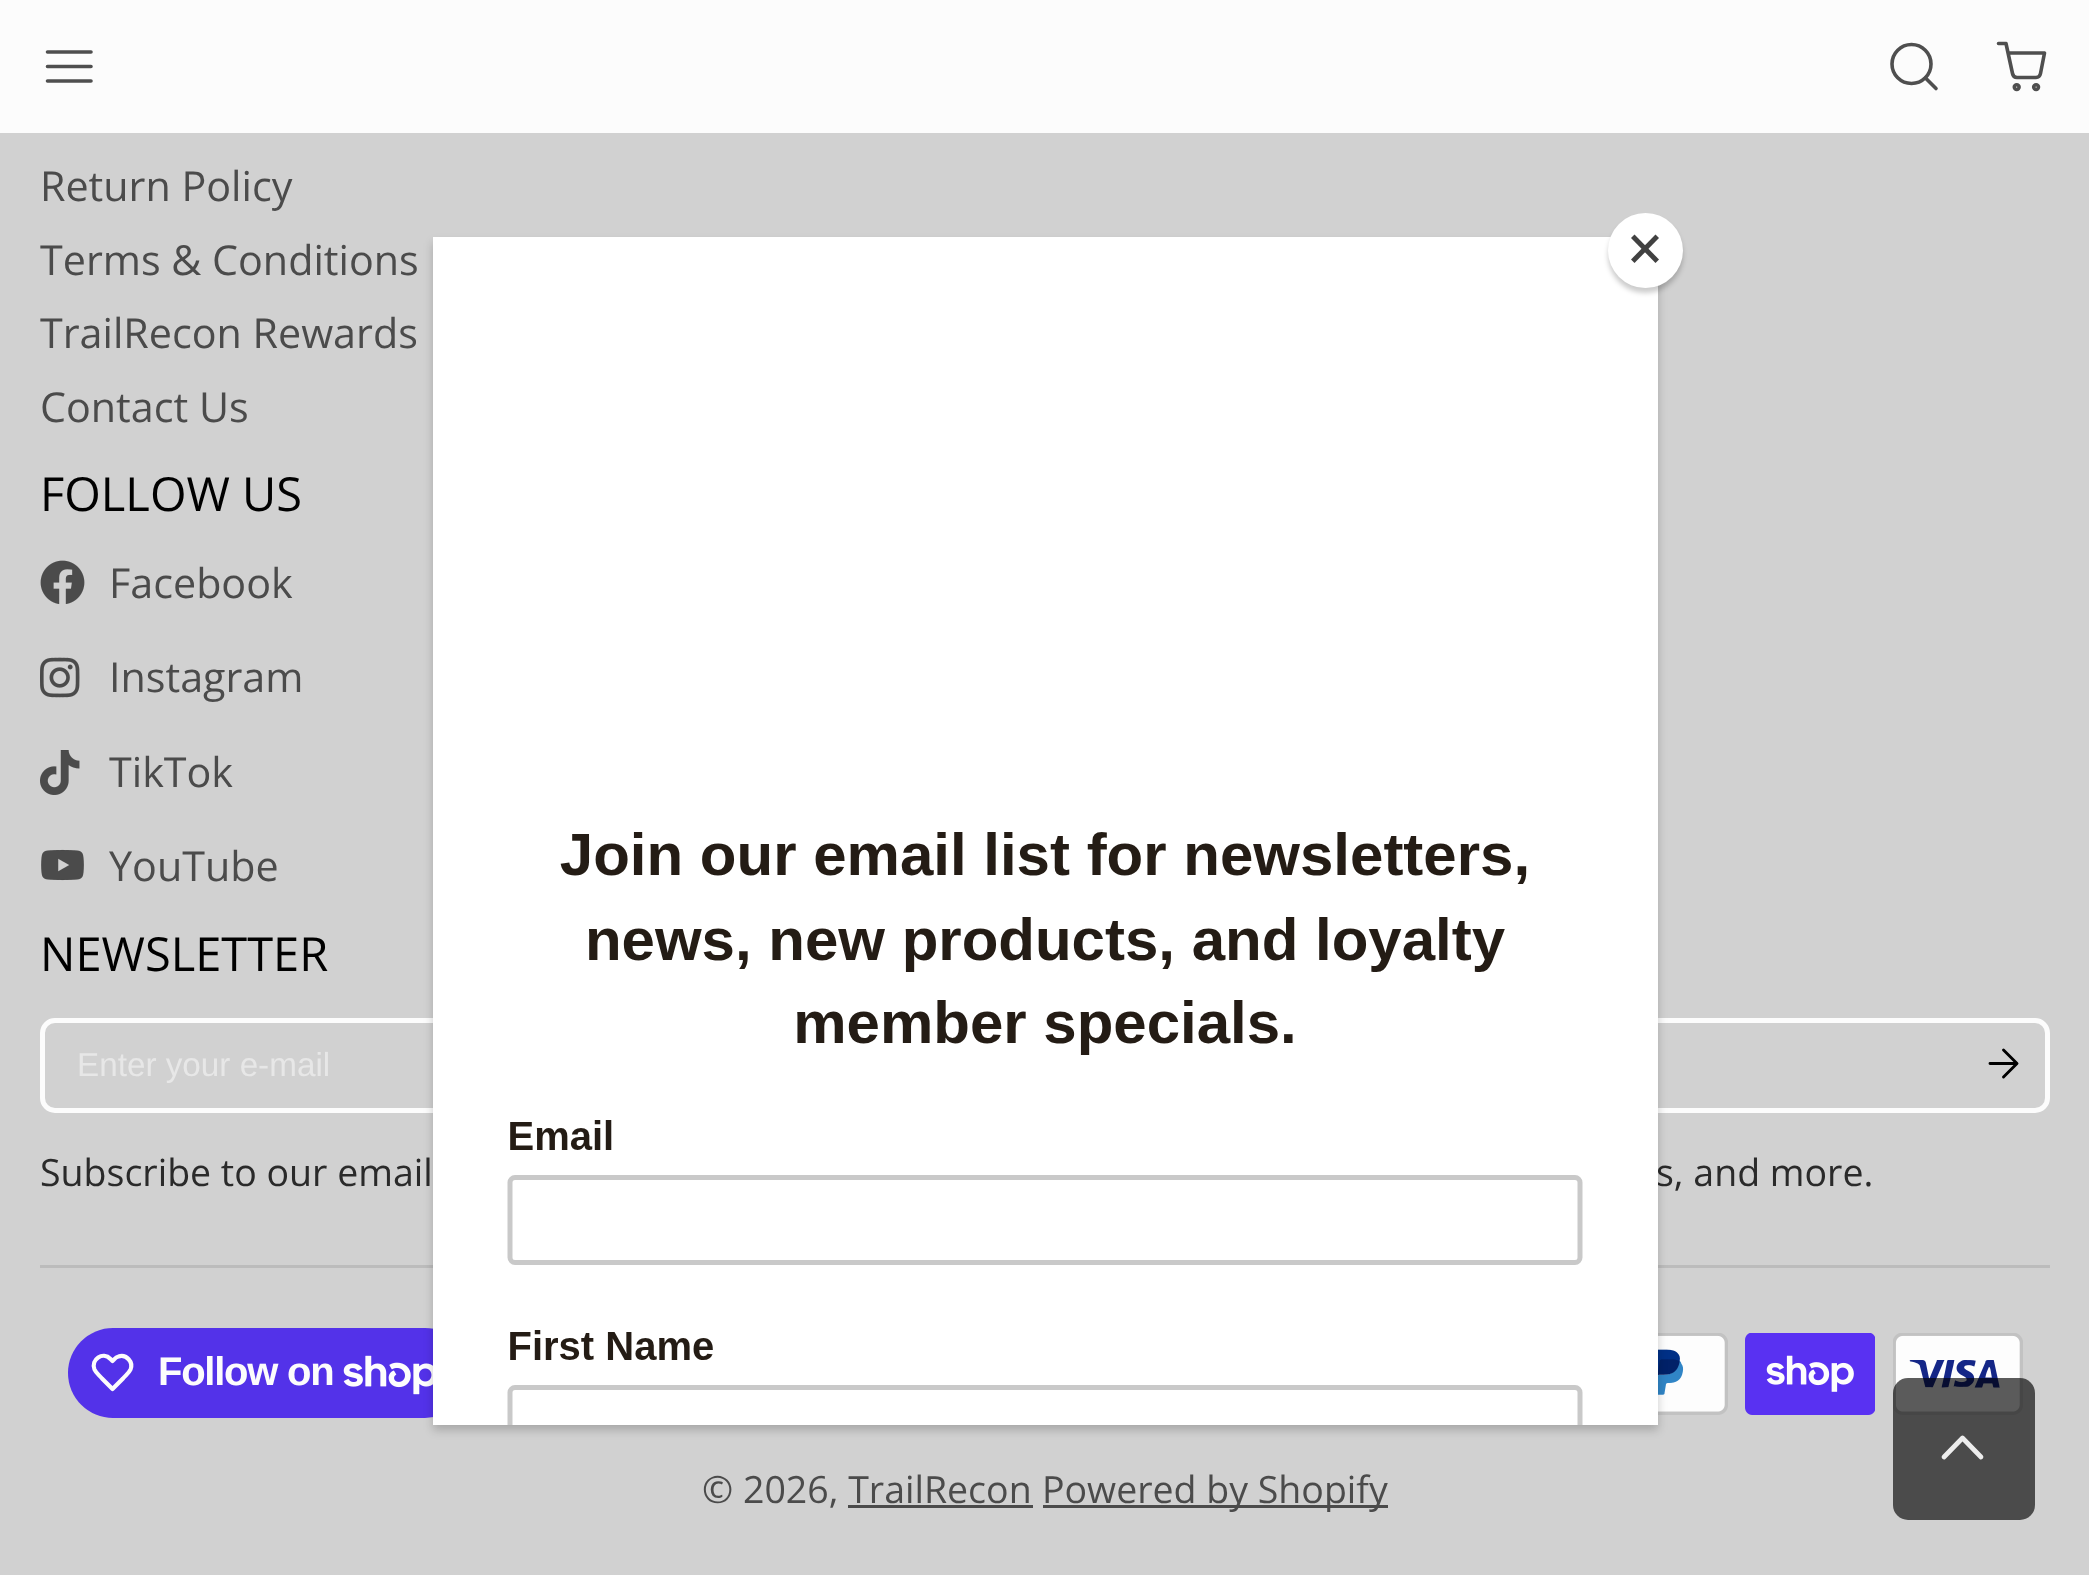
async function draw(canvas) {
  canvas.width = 2089
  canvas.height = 1575
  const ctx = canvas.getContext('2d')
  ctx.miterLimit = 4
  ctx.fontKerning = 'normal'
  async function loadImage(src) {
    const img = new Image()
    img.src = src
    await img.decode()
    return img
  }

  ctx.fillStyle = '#d1d1d1'
  ctx.fillRect(0, 0, 2089, 1575)
  ctx.fillStyle = '#fcfcfc'
  ctx.fillRect(0, 0, 2089, 133)
  ctx.beginPath()
  ctx.moveTo(47.5, 66.5)
  ctx.lineTo(91, 66.5)
  ctx.moveTo(47.5, 52)
  ctx.lineTo(91, 52)
  ctx.moveTo(47.5, 81)
  ctx.lineTo(91, 81)
  ctx.strokeStyle = '#4f4f4f'
  ctx.lineWidth = 3.6
  ctx.lineCap = 'round'
  ctx.lineJoin = 'round'
  ctx.stroke()
  ctx.beginPath()
  ctx.arc(1911.5, 64, 19.5, 0, 2 * Math.PI)
  ctx.stroke()
  ctx.beginPath()
  ctx.moveTo(1936, 88.5)
  ctx.lineTo(1925.5, 78)
  ctx.stroke()
  ctx.beginPath()
  ctx.arc(2016.7, 87.1, 2.4, 0, 2 * Math.PI)
  ctx.stroke()
  ctx.beginPath()
  ctx.arc(2036.1, 87.1, 2.4, 0, 2 * Math.PI)
  ctx.stroke()
  ctx.beginPath()
  ctx.moveTo(1998.5, 43.5)
  ctx.lineTo(2006, 43.5)
  ctx.lineTo(2012.5, 73.5)
  ctx.bezierCurveTo(2013, 76, 2015, 77.5, 2017, 77.5)
  ctx.lineTo(2036, 77.5)
  ctx.bezierCurveTo(2038, 77.5, 2040, 76, 2040.5, 73.5)
  ctx.lineTo(2044.5, 53)
  ctx.lineTo(2009.5, 53)
  ctx.stroke()
  ctx.font = '41.25px Open Sans'
  ctx.fillStyle = '#4b4b4b'
  ctx.fillText('Return Policy', 40, 201)
  ctx.fillText('Terms & Conditions', 40, 275)
  ctx.fillText('TrailRecon Rewards', 40, 348)
  ctx.fillText('Contact Us', 40, 422)
  ctx.font = '47px Open Sans'
  ctx.fillStyle = '#000'
  ctx.fillText('FOLLOW US', 40, 511)
  ctx.drawImage(await loadImage('image0.png'), 40, 560, 45, 44)
  ctx.font = '41.25px Open Sans'
  ctx.fillStyle = '#4b4b4b'
  ctx.fillText('Facebook', 109, 598)
  ctx.drawImage(await loadImage('image1.png'), 40, 657, 40, 41)
  ctx.fillText('Instagram', 109, 692)
  ctx.drawImage(await loadImage('image2.png'), 40, 750, 40, 45)
  ctx.fillText('TikTok', 109, 787)
  ctx.drawImage(await loadImage('image3.png'), 41, 849, 43, 32)
  ctx.fillText('YouTube', 109, 881)
  ctx.font = '47px Open Sans'
  ctx.fillStyle = '#000'
  ctx.fillText('NEWSLETTER', 40, 971)
  ctx.beginPath()
  ctx.roundRect(42.5, 1020.5, 2005, 90, 12.5)
  ctx.strokeStyle = '#fcfcfc'
  ctx.lineWidth = 5
  ctx.lineJoin = 'miter'
  ctx.stroke()
  ctx.font = '33.25px Liberation Sans'
  ctx.fillStyle = '#e7e7e7'
  ctx.fillText('Enter your e-mail', 77, 1076)
  ctx.beginPath()
  ctx.moveTo(1990, 1063.5)
  ctx.lineTo(2015, 1063.5)
  ctx.moveTo(2003.5, 1050)
  ctx.lineTo(2017, 1063.5)
  ctx.lineTo(2003.5, 1077)
  ctx.strokeStyle = '#000'
  ctx.lineWidth = 2.9
  ctx.lineJoin = 'round'
  ctx.stroke()
  ctx.font = '37.5px Open Sans'
  ctx.fillStyle = '#2a2a2a'
  ctx.fillText('Subscribe to our email', 40, 1186)
  ctx.fillText('s, and more.', 1656, 1186)
  ctx.fillStyle = '#bcbcbc'
  ctx.fillRect(40, 1265, 2010, 3)
  ctx.fillStyle = '#5332e9'
  ctx.beginPath()
  ctx.roundRect(68, 1328, 402, 90, 45)
  ctx.fill()
  ctx.beginPath()
  ctx.moveTo(110.5, 1359)
  ctx.lineTo(112.5, 1361)
  ctx.bezierCurveTo(114.5, 1359, 116, 1357, 118.5, 1356.5)
  ctx.bezierCurveTo(126.5, 1354, 133.5, 1362, 130.5, 1369.5)
  ctx.bezierCurveTo(129, 1373, 125.5, 1375.5, 123, 1378.5)
  ctx.lineTo(112.5, 1389)
  ctx.lineTo(102, 1378.5)
  ctx.bezierCurveTo(99.5, 1375.5, 96, 1373, 94.5, 1369.5)
  ctx.bezierCurveTo(90.5, 1359.5, 103, 1351, 110.5, 1359)
  ctx.closePath()
  ctx.strokeStyle = '#fcfcfc'
  ctx.lineWidth = 4.2
  ctx.lineCap = 'butt'
  ctx.stroke()
  ctx.letterSpacing = '-1.25px'
  ctx.font = 'bold 40px Liberation Sans'
  ctx.fillStyle = '#fcfcfc'
  ctx.fillText('Follow on', 158, 1385)
  ctx.drawImage(await loadImage('image4.png'), 343, 1355, 90, 40)
  ctx.drawImage(await loadImage('image5.png'), 1658, 1333, 70, 82)
  ctx.drawImage(await loadImage('image6.png'), 1745, 1333, 130, 82)
  ctx.drawImage(await loadImage('image7.png'), 1893, 1333, 130, 82)
  ctx.letterSpacing = '0px'
  ctx.font = '37.5px Open Sans'
  ctx.fillStyle = '#4b4b4b'
  ctx.fillText('© 2026, TrailRecon', 702, 1503)
  ctx.fillRect(1043, 1505, 345, 3)
  ctx.fillText('Powered by Shopify', 1042, 1503)
  ctx.fillRect(848, 1505, 185, 3)
  ctx.fillStyle = '#00000033'
  ctx.filter = 'blur(5px)'
  ctx.beginPath()
  ctx.rect(433, 243, 1225, 1187)
  ctx.fill()
  ctx.filter = 'none'
  ctx.drawImage(await loadImage('image8.png'), 433, 237, 1225, 1188)
  ctx.filter = 'blur(2.5px)'
  ctx.beginPath()
  ctx.roundRect(1608, 218, 75, 75, 37.5)
  ctx.fill()
  ctx.filter = 'none'
  ctx.fillStyle = '#fff'
  ctx.beginPath()
  ctx.arc(1645.5, 250.5, 37.5, 0, 2 * Math.PI)
  ctx.fill()
  ctx.fillStyle = '#414141'
  ctx.beginPath()
  ctx.moveTo(1655.5, 234.5)
  ctx.lineTo(1659, 238)
  ctx.lineTo(1634.5, 263)
  ctx.lineTo(1631, 259.5)
  ctx.closePath()
  ctx.fill()
  ctx.beginPath()
  ctx.moveTo(1631, 238)
  ctx.lineTo(1634.5, 234.5)
  ctx.lineTo(1659, 259.5)
  ctx.lineTo(1655.5, 263)
  ctx.closePath()
  ctx.fill()
  ctx.fillStyle = '#000000a3'
  ctx.beginPath()
  ctx.roundRect(1893, 1378, 142, 142, 15)
  ctx.fill()
  ctx.beginPath()
  ctx.moveTo(1981, 1457)
  ctx.lineTo(1962.5, 1438)
  ctx.lineTo(1944, 1457)
  ctx.strokeStyle = '#ededed'
  ctx.lineWidth = 4.7
  ctx.lineCap = 'round'
  ctx.stroke()
}

draw(document.querySelector('canvas'))
